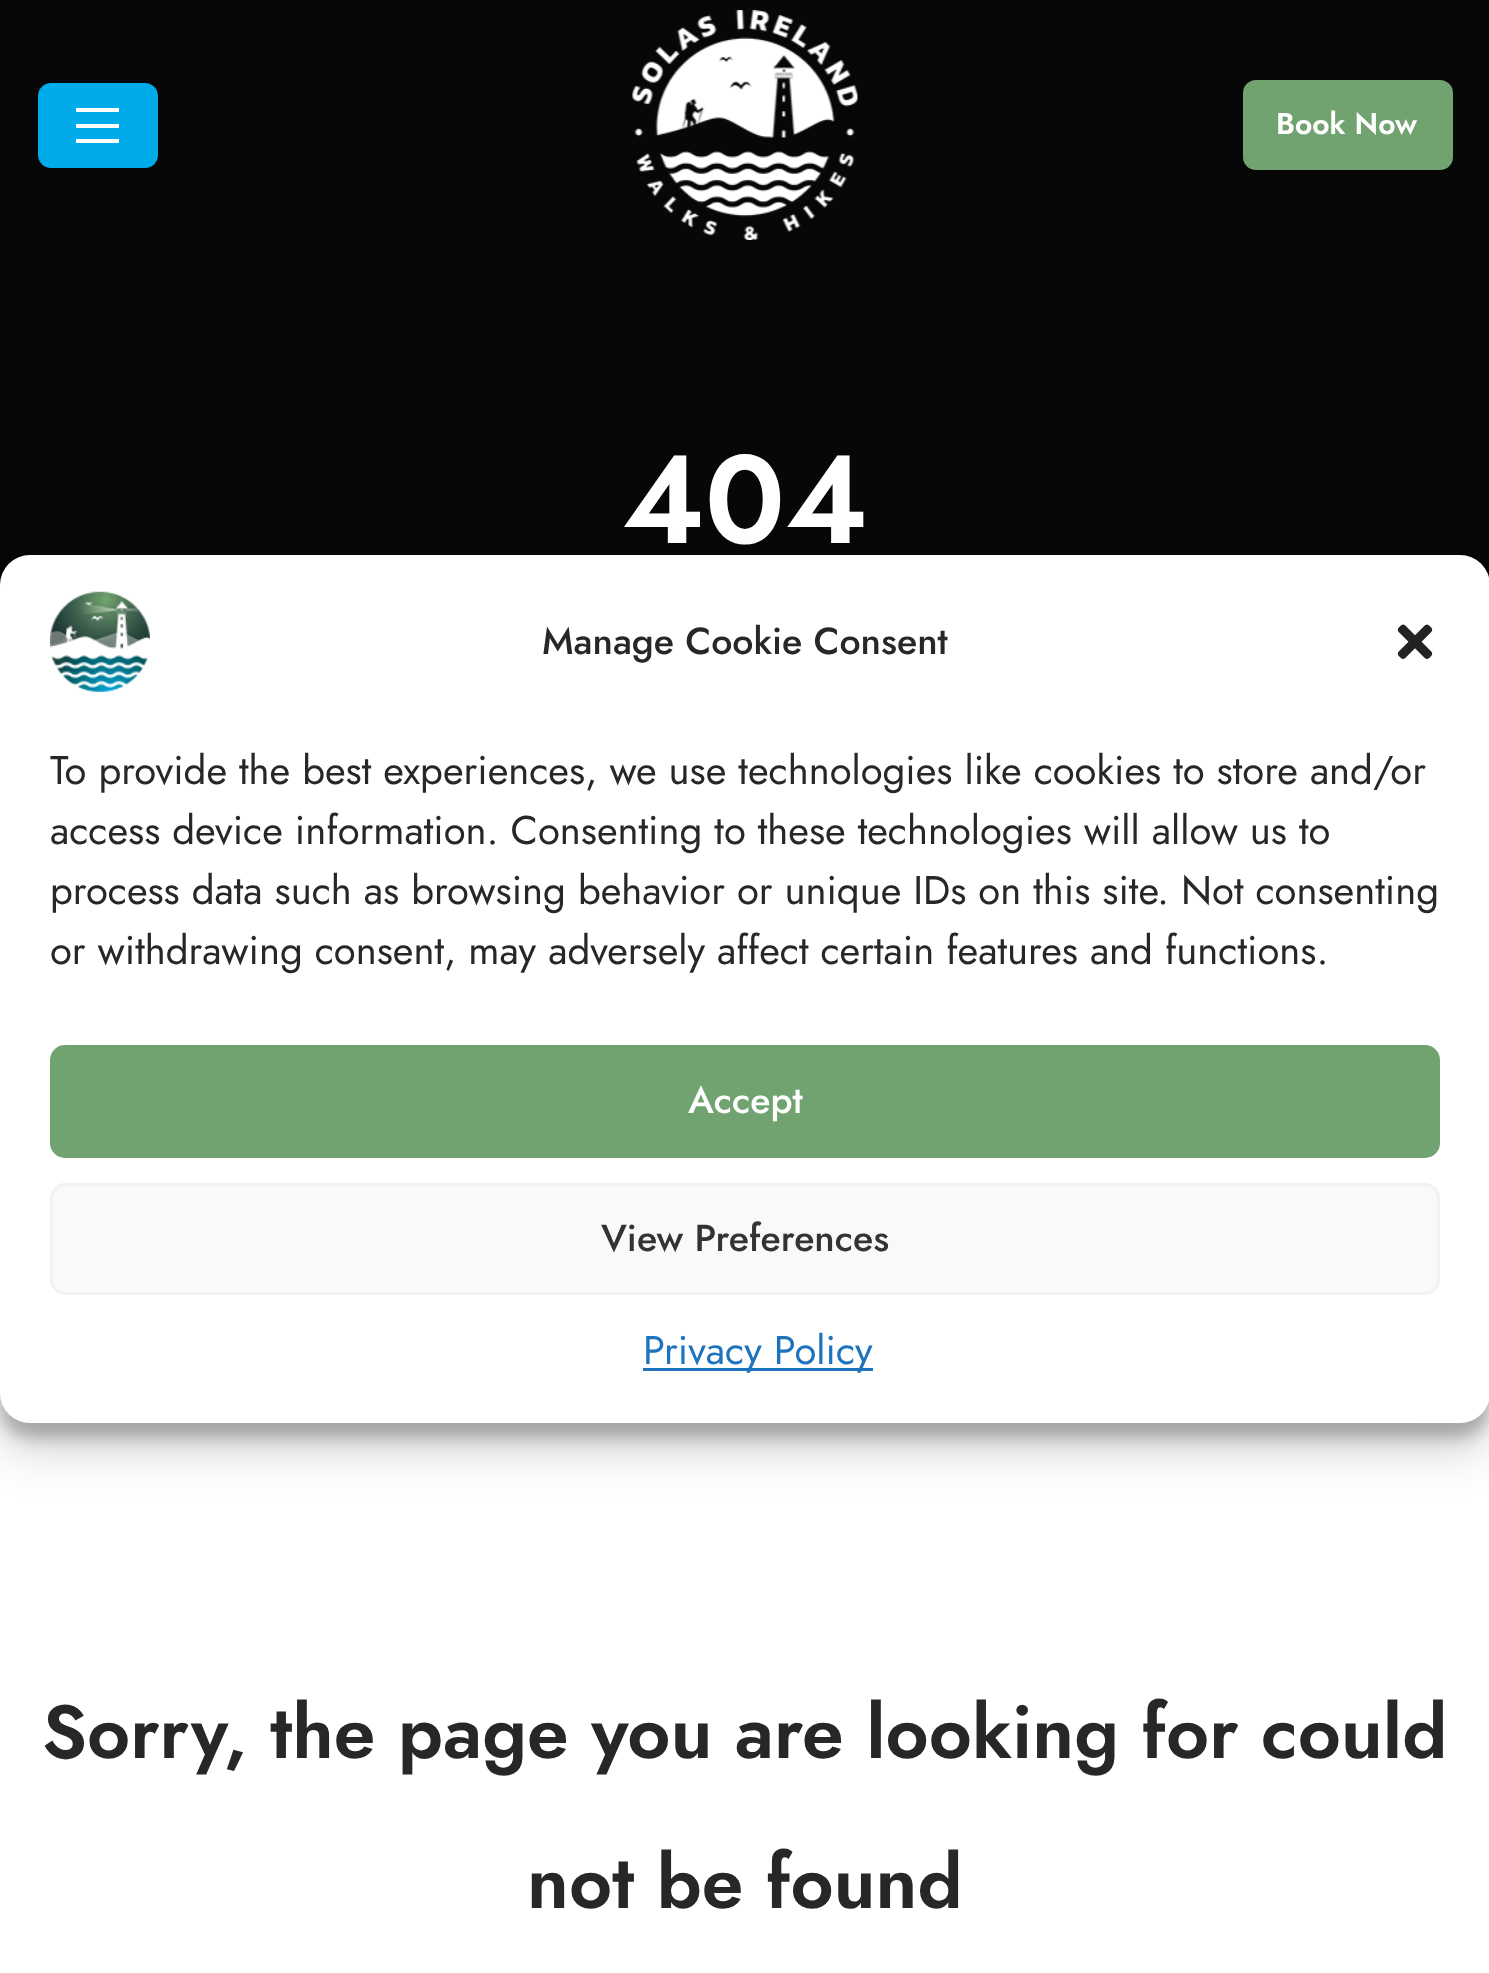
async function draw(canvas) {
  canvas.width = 1489
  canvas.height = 1973
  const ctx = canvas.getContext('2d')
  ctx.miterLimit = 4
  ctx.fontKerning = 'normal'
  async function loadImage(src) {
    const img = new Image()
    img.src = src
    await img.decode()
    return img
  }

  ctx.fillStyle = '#fff'
  ctx.fillRect(0, 0, 1489, 1973)
  ctx.fillStyle = '#070707'
  ctx.fillRect(0, 0, 1489, 585)
  ctx.fillStyle = '#00abea'
  ctx.beginPath()
  ctx.roundRect(38, 83, 120, 85, 13)
  ctx.fill()
  ctx.fillStyle = '#fff'
  ctx.beginPath()
  ctx.moveTo(76, 112)
  ctx.lineTo(119, 112)
  ctx.lineTo(119, 108)
  ctx.lineTo(76, 108)
  ctx.closePath()
  ctx.moveTo(76, 128)
  ctx.lineTo(119, 128)
  ctx.lineTo(119, 124)
  ctx.lineTo(76, 124)
  ctx.closePath()
  ctx.moveTo(76, 143)
  ctx.lineTo(119, 143)
  ctx.lineTo(119, 139)
  ctx.lineTo(76, 139)
  ctx.closePath()
  ctx.fill()
  ctx.drawImage(await loadImage('image0.png'), 632, 10, 226, 230)
  ctx.fillStyle = '#71a370'
  ctx.beginPath()
  ctx.roundRect(1243, 80, 210, 90, 13)
  ctx.fill()
  ctx.font = '600 30px Jost'
  ctx.fillStyle = '#fff'
  ctx.fillText('Book Now', 1276, 134)
  ctx.font = '600 125px Jost'
  ctx.fillText('404', 622, 543)
  ctx.font = '600 75px Jost'
  ctx.fillStyle = '#272727'
  ctx.fillText('Sorry, the page you are looking for could', 42, 1758)
  ctx.fillText('not be found', 527, 1908)
  ctx.fillStyle = '#0000003b'
  ctx.filter = 'blur(7.5px)'
  ctx.beginPath()
  ctx.roundRect(0, 570, 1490, 868, 30)
  ctx.fill()
  ctx.filter = 'none'
  ctx.fillStyle = '#00000030'
  ctx.filter = 'blur(25px)'
  ctx.beginPath()
  ctx.roundRect(0, 580, 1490, 868, 30)
  ctx.fill()
  ctx.filter = 'none'
  ctx.fillStyle = '#fff'
  ctx.beginPath()
  ctx.roundRect(0, 555, 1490, 868, 30)
  ctx.fill()
  ctx.drawImage(await loadImage('image1.png'), 50, 591, 100, 101)
  ctx.font = '500 37.5px Jost'
  ctx.fillStyle = '#272727'
  ctx.fillText('Manage Cookie Consent', 542, 654)
  ctx.drawImage(await loadImage('image2.png'), 1397, 624, 36, 35)
  ctx.font = '40px Jost'
  ctx.fillText('To provide the best experiences, we use technologies like cookies to store and/or', 50, 784)
  ctx.fillText('access device information. Consenting to these technologies will allow us to', 50, 844)
  ctx.fillText('process data such as browsing behavior or unique IDs on this site. Not consenting', 50, 904)
  ctx.fillText('or withdrawing consent, may adversely affect certain features and functions.', 50, 964)
  ctx.fillStyle = '#71a370'
  ctx.beginPath()
  ctx.roundRect(51.5, 1046.5, 1387, 110, 13.5)
  ctx.fill()
  ctx.strokeStyle = '#71a370'
  ctx.lineWidth = 3
  ctx.stroke()
  ctx.font = '500 37.5px Jost'
  ctx.fillStyle = '#fff'
  ctx.fillText('Accept', 688, 1113)
  ctx.fillStyle = '#f9f9f9'
  ctx.beginPath()
  ctx.roundRect(51.5, 1184.5, 1387, 109, 13.5)
  ctx.fill()
  ctx.strokeStyle = '#f2f2f2'
  ctx.stroke()
  ctx.fillStyle = '#333'
  ctx.fillText('View Preferences', 601, 1251)
  ctx.fillStyle = '#1e73be'
  ctx.fillRect(643, 1368, 230, 3)
  ctx.font = '40px Jost'
  ctx.fillText('Privacy Policy', 643, 1364)
}

draw(document.querySelector('canvas'))
